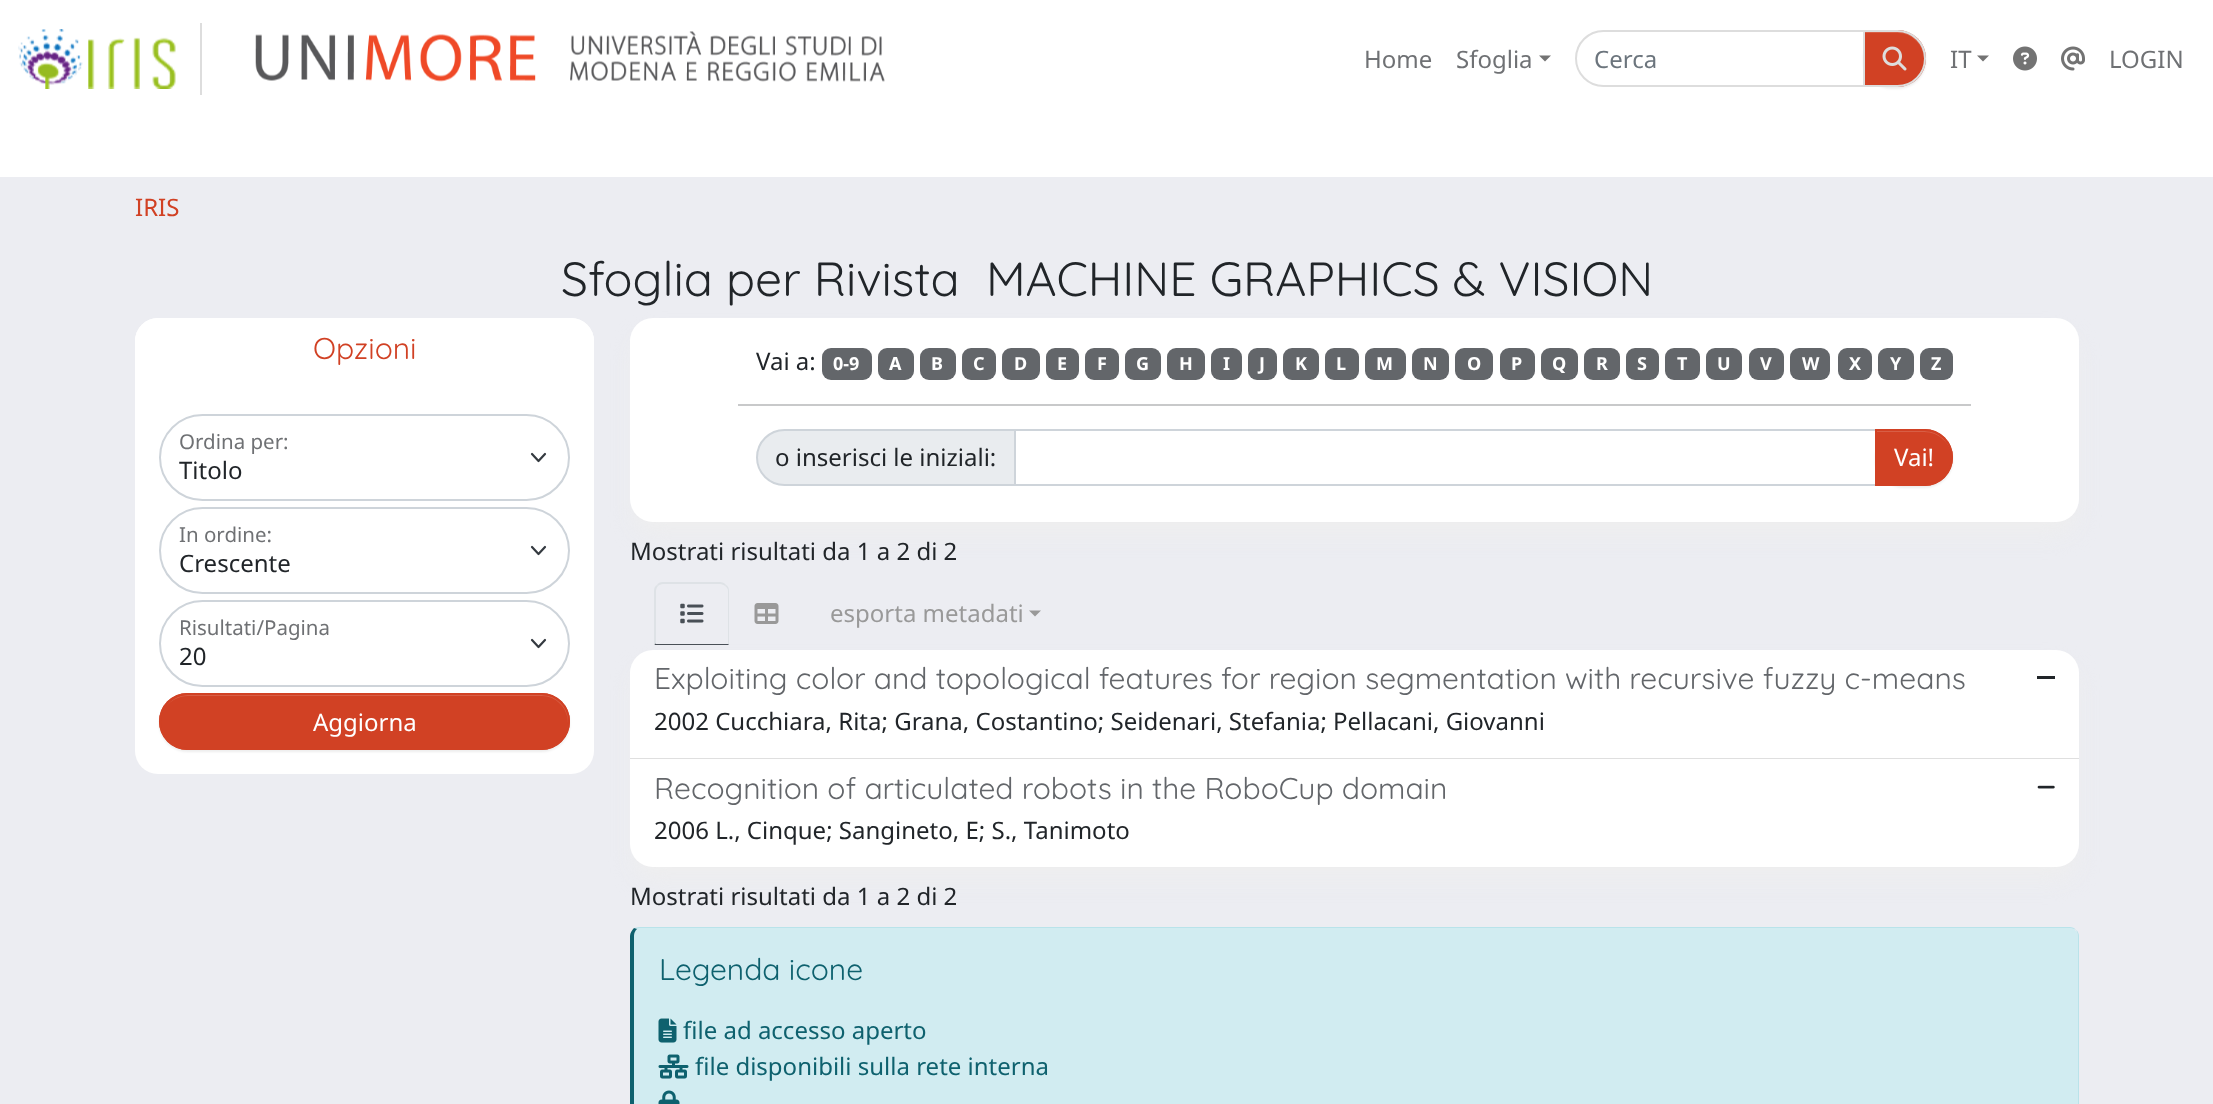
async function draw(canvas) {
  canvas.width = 2213
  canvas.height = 1104
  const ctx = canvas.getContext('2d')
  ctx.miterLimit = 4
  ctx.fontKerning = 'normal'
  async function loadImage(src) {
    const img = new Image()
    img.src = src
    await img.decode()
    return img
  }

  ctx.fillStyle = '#ecedf2'
  ctx.fillRect(0, 0, 2213, 1104)
  ctx.fillStyle = '#fff'
  ctx.fillRect(0, 0, 2213, 177)
  ctx.fillStyle = '#ddd'
  ctx.fillRect(200, 23, 2, 72)
  ctx.drawImage(await loadImage('image0.png'), 18, 29, 158, 60)
  ctx.drawImage(await loadImage('image1.png'), 255, 31, 630, 51)
  ctx.font = '24px Noto Sans'
  ctx.fillStyle = '#6f7174'
  ctx.fillText('Home', 1364, 68)
  ctx.fillText('Sfoglia', 1456, 68)
  ctx.fillStyle = '#737373'
  ctx.beginPath()
  ctx.moveTo(1539, 55.5)
  ctx.lineTo(1551, 55.5)
  ctx.lineTo(1545, 61.5)
  ctx.closePath()
  ctx.fill()
  ctx.beginPath()
  ctx.roundRect(1576, 31, 288, 55, [27.5, 0, 0, 27.5])
  ctx.strokeStyle = '#ddd'
  ctx.lineWidth = 2
  ctx.stroke()
  ctx.fillStyle = '#6c757d'
  ctx.fillText('Cerca', 1594, 68)
  ctx.fillStyle = '#00000012'
  ctx.filter = 'blur(1px)'
  ctx.beginPath()
  ctx.roundRect(1863, 32, 63, 57, 28.5)
  ctx.fill()
  ctx.filter = 'none'
  ctx.fillStyle = '#d14124'
  ctx.beginPath()
  ctx.roundRect(1863, 30, 63, 57, [0, 28.5, 28.5, 0])
  ctx.fill()
  ctx.fillStyle = '#d85e45'
  ctx.beginPath()
  ctx.moveTo(1865, 32)
  ctx.lineTo(1865, 33)
  ctx.lineTo(1898, 33)
  ctx.bezierCurveTo(1912, 33, 1924, 45, 1924, 60)
  ctx.bezierCurveTo(1924, 67, 1922, 72, 1918, 77)
  ctx.bezierCurveTo(1933, 60, 1922, 32, 1898, 32)
  ctx.closePath()
  ctx.fill()
  ctx.beginPath()
  ctx.roundRect(1864, 31, 61, 55, [0, 27.5, 27.5, 0])
  ctx.stroke()
  ctx.drawImage(await loadImage('image2.png'), 1882, 46, 25, 25)
  ctx.fillStyle = '#6f7174'
  ctx.fillText('IT', 1950, 68)
  ctx.fillStyle = '#737373'
  ctx.beginPath()
  ctx.moveTo(1977, 55.5)
  ctx.lineTo(1989, 55.5)
  ctx.lineTo(1983, 61.5)
  ctx.closePath()
  ctx.fill()
  ctx.drawImage(await loadImage('image3.png'), 2013, 46, 24, 25)
  ctx.drawImage(await loadImage('image4.png'), 2061, 46, 24, 25)
  ctx.fillStyle = '#6f7174'
  ctx.fillText('LOGIN', 2109, 68)
  ctx.fillStyle = '#d14124'
  ctx.fillText('IRIS', 135, 216)
  ctx.font = '300 48px Quicksand'
  ctx.fillStyle = '#212529'
  ctx.fillText('Sfoglia per Rivista  MACHINE GRAPHICS & VISION', 561, 296)
  ctx.fillStyle = '#fff'
  ctx.beginPath()
  ctx.roundRect(135, 318, 459, 456, 23)
  ctx.fill()
  ctx.beginPath()
  ctx.roundRect(135, 318, 459, 72, [23, 23, 0, 0])
  ctx.fill()
  ctx.font = '300 30px Quicksand'
  ctx.fillStyle = '#d14124'
  ctx.fillText('Opzioni', 313, 359)
  ctx.beginPath()
  ctx.moveTo(532, 454)
  ctx.lineTo(538.5, 461)
  ctx.lineTo(545, 454)
  ctx.strokeStyle = '#343a40'
  ctx.lineWidth = 2.2
  ctx.lineCap = 'round'
  ctx.lineJoin = 'round'
  ctx.stroke()
  ctx.beginPath()
  ctx.roundRect(160, 415, 409, 85, 42.5)
  ctx.strokeStyle = '#ced4da'
  ctx.lineWidth = 2
  ctx.lineJoin = 'miter'
  ctx.stroke()
  ctx.font = '20.5px Noto Sans'
  ctx.fillStyle = '#6f7174'
  ctx.fillText('Ordina per:', 179, 449)
  ctx.font = '24px Noto Sans'
  ctx.fillStyle = '#212529'
  ctx.fillText('Titolo', 179, 479)
  ctx.beginPath()
  ctx.moveTo(532, 547)
  ctx.lineTo(538.5, 554)
  ctx.lineTo(545, 547)
  ctx.strokeStyle = '#343a40'
  ctx.lineWidth = 2.2
  ctx.lineJoin = 'round'
  ctx.stroke()
  ctx.beginPath()
  ctx.roundRect(160, 508, 409, 85, 42.5)
  ctx.strokeStyle = '#ced4da'
  ctx.lineWidth = 2
  ctx.lineJoin = 'miter'
  ctx.stroke()
  ctx.font = '20.5px Noto Sans'
  ctx.fillStyle = '#6f7174'
  ctx.fillText('In ordine:', 179, 542)
  ctx.font = '24px Noto Sans'
  ctx.fillStyle = '#212529'
  ctx.fillText('Crescente', 179, 572)
  ctx.beginPath()
  ctx.moveTo(532, 640)
  ctx.lineTo(538.5, 647)
  ctx.lineTo(545, 640)
  ctx.strokeStyle = '#343a40'
  ctx.lineWidth = 2.2
  ctx.lineJoin = 'round'
  ctx.stroke()
  ctx.beginPath()
  ctx.roundRect(160, 601, 409, 85, 42.5)
  ctx.strokeStyle = '#ced4da'
  ctx.lineWidth = 2
  ctx.lineJoin = 'miter'
  ctx.stroke()
  ctx.font = '20.5px Noto Sans'
  ctx.fillStyle = '#6f7174'
  ctx.fillText('Risultati/Pagina', 179, 635)
  ctx.font = '24px Noto Sans'
  ctx.fillStyle = '#212529'
  ctx.fillText('20', 179, 665)
  ctx.fillStyle = '#00000012'
  ctx.filter = 'blur(1px)'
  ctx.beginPath()
  ctx.roundRect(159, 695, 411, 57, 28.5)
  ctx.fill()
  ctx.filter = 'none'
  ctx.fillStyle = '#d14124'
  ctx.beginPath()
  ctx.roundRect(159, 693, 411, 57, 28.5)
  ctx.fill()
  ctx.fillStyle = '#d85e45'
  ctx.beginPath()
  ctx.moveTo(188, 696)
  ctx.lineTo(542, 696)
  ctx.bezierCurveTo(556, 696, 568, 708, 568, 723)
  ctx.bezierCurveTo(568, 730, 566, 735, 562, 740)
  ctx.bezierCurveTo(566, 735, 569, 729, 569, 722)
  ctx.bezierCurveTo(569, 707, 557, 695, 542, 695)
  ctx.lineTo(188, 695)
  ctx.bezierCurveTo(179, 695, 170, 700, 166, 707)
  ctx.bezierCurveTo(171, 700, 179, 696, 188, 696)
  ctx.closePath()
  ctx.fill()
  ctx.beginPath()
  ctx.roundRect(160, 694, 409, 55, 27.5)
  ctx.strokeStyle = '#d14124'
  ctx.stroke()
  ctx.fillStyle = '#fff'
  ctx.fillText('Aggiorna', 313, 731)
  ctx.fillStyle = '#eee'
  ctx.filter = 'blur(11px)'
  ctx.beginPath()
  ctx.roundRect(635, 338, 1440, 195, 18)
  ctx.fill()
  ctx.filter = 'none'
  ctx.fillStyle = '#fff'
  ctx.beginPath()
  ctx.roundRect(630, 318, 1449, 204, 23)
  ctx.fill()
  ctx.fillStyle = '#212529'
  ctx.fillText('Vai a:', 756, 370)
  ctx.fillStyle = '#63666a'
  ctx.beginPath()
  ctx.roundRect(822, 348, 50, 32, 9)
  ctx.fill()
  ctx.font = 'bold 18px Noto Sans'
  ctx.fillStyle = '#fff'
  ctx.fillText('0-9', 833, 370)
  ctx.fillStyle = '#63666a'
  ctx.beginPath()
  ctx.roundRect(878, 348, 36, 32, 9)
  ctx.fill()
  ctx.fillStyle = '#fff'
  ctx.fillText('A', 889, 370)
  ctx.fillStyle = '#63666a'
  ctx.beginPath()
  ctx.roundRect(920, 348, 36, 32, 9)
  ctx.fill()
  ctx.fillStyle = '#fff'
  ctx.fillText('B', 931, 370)
  ctx.fillStyle = '#63666a'
  ctx.beginPath()
  ctx.roundRect(962, 348, 34, 32, 9)
  ctx.fill()
  ctx.fillStyle = '#fff'
  ctx.fillText('C', 973, 370)
  ctx.fillStyle = '#63666a'
  ctx.beginPath()
  ctx.roundRect(1002, 348, 38, 32, 9)
  ctx.fill()
  ctx.fillStyle = '#fff'
  ctx.fillText('D', 1014, 370)
  ctx.fillStyle = '#63666a'
  ctx.beginPath()
  ctx.roundRect(1046, 348, 33, 32, 9)
  ctx.fill()
  ctx.fillStyle = '#fff'
  ctx.fillText('E', 1057, 370)
  ctx.fillStyle = '#63666a'
  ctx.beginPath()
  ctx.roundRect(1085, 348, 34, 32, 9)
  ctx.fill()
  ctx.fillStyle = '#fff'
  ctx.fillText('F', 1097, 370)
  ctx.fillStyle = '#63666a'
  ctx.beginPath()
  ctx.roundRect(1125, 348, 36, 32, 9)
  ctx.fill()
  ctx.fillStyle = '#fff'
  ctx.fillText('G', 1136, 370)
  ctx.fillStyle = '#63666a'
  ctx.beginPath()
  ctx.roundRect(1167, 348, 38, 32, 9)
  ctx.fill()
  ctx.fillStyle = '#fff'
  ctx.fillText('H', 1179, 370)
  ctx.fillStyle = '#63666a'
  ctx.beginPath()
  ctx.roundRect(1211, 348, 31, 32, 9)
  ctx.fill()
  ctx.fillStyle = '#fff'
  ctx.fillText('I', 1223, 370)
  ctx.fillStyle = '#63666a'
  ctx.beginPath()
  ctx.roundRect(1248, 348, 29, 32, 9)
  ctx.fill()
  ctx.fillStyle = '#fff'
  ctx.fillText('J', 1259, 370)
  ctx.fillStyle = '#63666a'
  ctx.beginPath()
  ctx.roundRect(1283, 348, 36, 32, 9)
  ctx.fill()
  ctx.fillStyle = '#fff'
  ctx.fillText('K', 1295, 370)
  ctx.fillStyle = '#63666a'
  ctx.beginPath()
  ctx.roundRect(1325, 348, 34, 32, 9)
  ctx.fill()
  ctx.fillStyle = '#fff'
  ctx.fillText('L', 1336, 370)
  ctx.fillStyle = '#63666a'
  ctx.beginPath()
  ctx.roundRect(1365, 348, 41, 32, 9)
  ctx.fill()
  ctx.fillStyle = '#fff'
  ctx.fillText('M', 1376, 370)
  ctx.fillStyle = '#63666a'
  ctx.beginPath()
  ctx.roundRect(1412, 348, 37, 32, 9)
  ctx.fill()
  ctx.fillStyle = '#fff'
  ctx.fillText('N', 1423, 370)
  ctx.fillStyle = '#63666a'
  ctx.beginPath()
  ctx.roundRect(1455, 348, 38, 32, 9)
  ctx.fill()
  ctx.fillStyle = '#fff'
  ctx.fillText('O', 1467, 370)
  ctx.fillStyle = '#63666a'
  ctx.beginPath()
  ctx.roundRect(1500, 348, 35, 32, 9)
  ctx.fill()
  ctx.fillStyle = '#fff'
  ctx.fillText('P', 1511, 370)
  ctx.fillStyle = '#63666a'
  ctx.beginPath()
  ctx.roundRect(1541, 348, 37, 32, 9)
  ctx.fill()
  ctx.fillStyle = '#fff'
  ctx.fillText('Q', 1552, 370)
  ctx.fillStyle = '#63666a'
  ctx.beginPath()
  ctx.roundRect(1584, 348, 36, 32, 9)
  ctx.fill()
  ctx.fillStyle = '#fff'
  ctx.fillText('R', 1596, 370)
  ctx.fillStyle = '#63666a'
  ctx.beginPath()
  ctx.roundRect(1626, 348, 33, 32, 9)
  ctx.fill()
  ctx.fillStyle = '#fff'
  ctx.fillText('S', 1637, 370)
  ctx.fillStyle = '#63666a'
  ctx.beginPath()
  ctx.roundRect(1665, 348, 35, 32, 9)
  ctx.fill()
  ctx.fillStyle = '#fff'
  ctx.fillText('T', 1677, 370)
  ctx.fillStyle = '#63666a'
  ctx.beginPath()
  ctx.roundRect(1706, 348, 36, 32, 9)
  ctx.fill()
  ctx.fillStyle = '#fff'
  ctx.fillText('U', 1717, 370)
  ctx.fillStyle = '#63666a'
  ctx.beginPath()
  ctx.roundRect(1749, 348, 35, 32, 9)
  ctx.fill()
  ctx.fillStyle = '#fff'
  ctx.fillText('V', 1760, 370)
  ctx.fillStyle = '#63666a'
  ctx.beginPath()
  ctx.roundRect(1790, 348, 40, 32, 9)
  ctx.fill()
  ctx.fillStyle = '#fff'
  ctx.fillText('W', 1802, 370)
  ctx.fillStyle = '#63666a'
  ctx.beginPath()
  ctx.roundRect(1838, 348, 34, 32, 9)
  ctx.fill()
  ctx.fillStyle = '#fff'
  ctx.fillText('X', 1849, 370)
  ctx.fillStyle = '#63666a'
  ctx.beginPath()
  ctx.roundRect(1878, 348, 36, 32, 9)
  ctx.fill()
  ctx.fillStyle = '#fff'
  ctx.fillText('Y', 1890, 370)
  ctx.fillStyle = '#63666a'
  ctx.beginPath()
  ctx.roundRect(1920, 348, 33, 32, 9)
  ctx.fill()
  ctx.fillStyle = '#fff'
  ctx.fillText('Z', 1931, 370)
  ctx.fillStyle = '#c8c9ca'
  ctx.fillRect(738, 404, 1233, 2)
  ctx.fillStyle = '#e9ecef'
  ctx.beginPath()
  ctx.roundRect(757, 430, 258, 55, [27.5, 0, 0, 27.5])
  ctx.fill()
  ctx.strokeStyle = '#ced4da'
  ctx.stroke()
  ctx.font = '24px Noto Sans'
  ctx.fillStyle = '#212529'
  ctx.fillText('o inserisci le iniziali:', 775, 466)
  ctx.strokeRect(1015, 430, 861, 55)
  ctx.fillStyle = '#00000012'
  ctx.filter = 'blur(1px)'
  ctx.beginPath()
  ctx.roundRect(1875, 431, 78, 57, 28.5)
  ctx.fill()
  ctx.filter = 'none'
  ctx.fillStyle = '#d14124'
  ctx.beginPath()
  ctx.roundRect(1875, 429, 78, 57, [0, 28.5, 28.5, 0])
  ctx.fill()
  ctx.fillStyle = '#d85e45'
  ctx.beginPath()
  ctx.moveTo(1877, 431)
  ctx.lineTo(1877, 432)
  ctx.lineTo(1924, 432)
  ctx.bezierCurveTo(1939, 432, 1952, 444, 1952, 459)
  ctx.bezierCurveTo(1952, 444, 1940, 431, 1925, 431)
  ctx.closePath()
  ctx.fill()
  ctx.beginPath()
  ctx.roundRect(1876, 430, 76, 55, [0, 27.5, 27.5, 0])
  ctx.strokeStyle = '#d14124'
  ctx.stroke()
  ctx.fillStyle = '#fff'
  ctx.fillText('Vai!', 1894, 466)
  ctx.fillStyle = '#212529'
  ctx.fillText('Mostrati risultati da 1 a 2 di 2', 630, 560)
  ctx.fillStyle = '#dee2e6'
  ctx.beginPath()
  ctx.moveTo(663, 582)
  ctx.bezierCurveTo(660, 582, 658, 583, 657, 585)
  ctx.lineTo(658, 586)
  ctx.bezierCurveTo(659, 585, 661, 584, 663, 584)
  ctx.lineTo(720, 584)
  ctx.bezierCurveTo(722, 584, 724, 585, 725, 586)
  ctx.lineTo(726, 585)
  ctx.bezierCurveTo(725, 583, 722, 582, 720, 582)
  ctx.closePath()
  ctx.fill()
  ctx.beginPath()
  ctx.moveTo(729, 645)
  ctx.lineTo(729, 591)
  ctx.bezierCurveTo(729, 588, 728, 586, 726, 585)
  ctx.lineTo(725, 586)
  ctx.bezierCurveTo(727, 587, 728, 589, 728, 591)
  ctx.lineTo(728, 644)
  ctx.closePath()
  ctx.fill()
  ctx.fillStyle = '#495057'
  ctx.beginPath()
  ctx.moveTo(729, 645)
  ctx.lineTo(728, 644)
  ctx.lineTo(656, 644)
  ctx.lineTo(656, 643)
  ctx.lineTo(654, 645)
  ctx.closePath()
  ctx.fill()
  ctx.fillStyle = '#dee2e6'
  ctx.beginPath()
  ctx.moveTo(654, 645)
  ctx.lineTo(656, 643)
  ctx.lineTo(656, 591)
  ctx.bezierCurveTo(656, 589, 657, 587, 658, 586)
  ctx.lineTo(657, 585)
  ctx.bezierCurveTo(655, 586, 654, 588, 654, 591)
  ctx.closePath()
  ctx.fill()
  ctx.drawImage(await loadImage('image5.png'), 680, 603, 24, 21)
  ctx.drawImage(await loadImage('image6.png'), 754, 603, 25, 21)
  ctx.fillStyle = '#999'
  ctx.fillText('esporta metadati', 830, 622)
  ctx.beginPath()
  ctx.moveTo(1029, 610.5)
  ctx.lineTo(1041, 610.5)
  ctx.lineTo(1035, 616.5)
  ctx.closePath()
  ctx.fill()
  ctx.fillStyle = '#eee'
  ctx.filter = 'blur(11px)'
  ctx.beginPath()
  ctx.roundRect(635, 669, 1440, 209, 18)
  ctx.fill()
  ctx.filter = 'none'
  ctx.fillStyle = '#fff'
  ctx.beginPath()
  ctx.roundRect(630, 650, 1449, 109, [23, 23, 0, 0])
  ctx.fill()
  ctx.fillStyle = '#dfdfdf'
  ctx.fillRect(630, 758, 1449, 1)
  ctx.font = '300 30px Quicksand'
  ctx.fillStyle = '#63666a'
  ctx.fillText('Exploiting color and topological features for region segmentation with recursive fuzzy c-means', 654, 689)
  ctx.fillStyle = '#212529'
  ctx.fillRect(2037, 676, 18, 3)
  ctx.font = '24px Noto Sans'
  ctx.fillText('2002 Cucchiara, Rita; Grana, Costantino; Seidenari, Stefania; Pellacani, Giovanni', 654, 730)
  ctx.fillStyle = '#fff'
  ctx.beginPath()
  ctx.roundRect(630, 759, 1449, 108, [0, 0, 23, 23])
  ctx.fill()
  ctx.font = '300 30px Quicksand'
  ctx.fillStyle = '#63666a'
  ctx.fillText('Recognition of articulated robots in the RoboCup domain', 654, 799)
  ctx.drawImage(await loadImage('image7.png'), 2037, 785, 18, 4)
  ctx.font = '24px Noto Sans'
  ctx.fillStyle = '#212529'
  ctx.fillText('2006 L., Cinque; Sangineto, E; S., Tanimoto', 654, 839)
  ctx.fillText('Mostrati risultati da 1 a 2 di 2', 630, 905)
  ctx.fillStyle = '#d1ecf1'
  ctx.beginPath()
  ctx.moveTo(639, 928)
  ctx.lineTo(2070, 928)
  ctx.bezierCurveTo(2074, 928, 2078, 932, 2078, 936)
  ctx.lineTo(2078, 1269)
  ctx.bezierCurveTo(2078, 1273, 2074, 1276, 2070, 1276)
  ctx.lineTo(639, 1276)
  ctx.bezierCurveTo(637, 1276, 634, 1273, 634, 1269)
  ctx.lineTo(634, 936)
  ctx.bezierCurveTo(634, 932, 637, 928, 639, 928)
  ctx.closePath()
  ctx.fill()
  ctx.fillStyle = '#b9e3ea'
  ctx.beginPath()
  ctx.moveTo(639, 927)
  ctx.bezierCurveTo(637, 927, 636, 928, 634, 928)
  ctx.lineTo(637, 929)
  ctx.lineTo(639, 928)
  ctx.lineTo(2070, 928)
  ctx.bezierCurveTo(2072, 928, 2074, 929, 2076, 930)
  ctx.bezierCurveTo(2075, 928, 2072, 927, 2070, 927)
  ctx.closePath()
  ctx.fill()
  ctx.beginPath()
  ctx.moveTo(2079, 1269)
  ctx.lineTo(2079, 936)
  ctx.bezierCurveTo(2079, 934, 2078, 931, 2076, 930)
  ctx.bezierCurveTo(2077, 932, 2078, 934, 2078, 936)
  ctx.lineTo(2078, 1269)
  ctx.bezierCurveTo(2078, 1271, 2077, 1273, 2075, 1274)
  ctx.lineTo(2076, 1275)
  ctx.bezierCurveTo(2078, 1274, 2079, 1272, 2079, 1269)
  ctx.closePath()
  ctx.fill()
  ctx.fillStyle = '#0e616e'
  ctx.beginPath()
  ctx.moveTo(630, 936)
  ctx.lineTo(630, 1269)
  ctx.bezierCurveTo(630, 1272, 632, 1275, 634, 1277)
  ctx.lineTo(637, 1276)
  ctx.bezierCurveTo(636, 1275, 634, 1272, 634, 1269)
  ctx.lineTo(634, 936)
  ctx.bezierCurveTo(634, 933, 635, 931, 637, 929)
  ctx.lineTo(634, 928)
  ctx.bezierCurveTo(632, 930, 630, 933, 630, 936)
  ctx.closePath()
  ctx.fill()
  ctx.font = '300 30px Quicksand'
  ctx.fillText('Legenda icone', 659, 980)
  ctx.drawImage(await loadImage('image8.png'), 658, 1018, 19, 25)
  ctx.font = '24px Noto Sans'
  ctx.fillText('file ad accesso aperto', 683, 1039)
  ctx.drawImage(await loadImage('image9.png'), 658, 1054, 31, 25)
  ctx.fillText('file disponibili sulla rete interna', 695, 1075)
  ctx.drawImage(await loadImage('image10.png'), 658, 1090, 22, 14)
}

draw(document.querySelector('canvas'))
